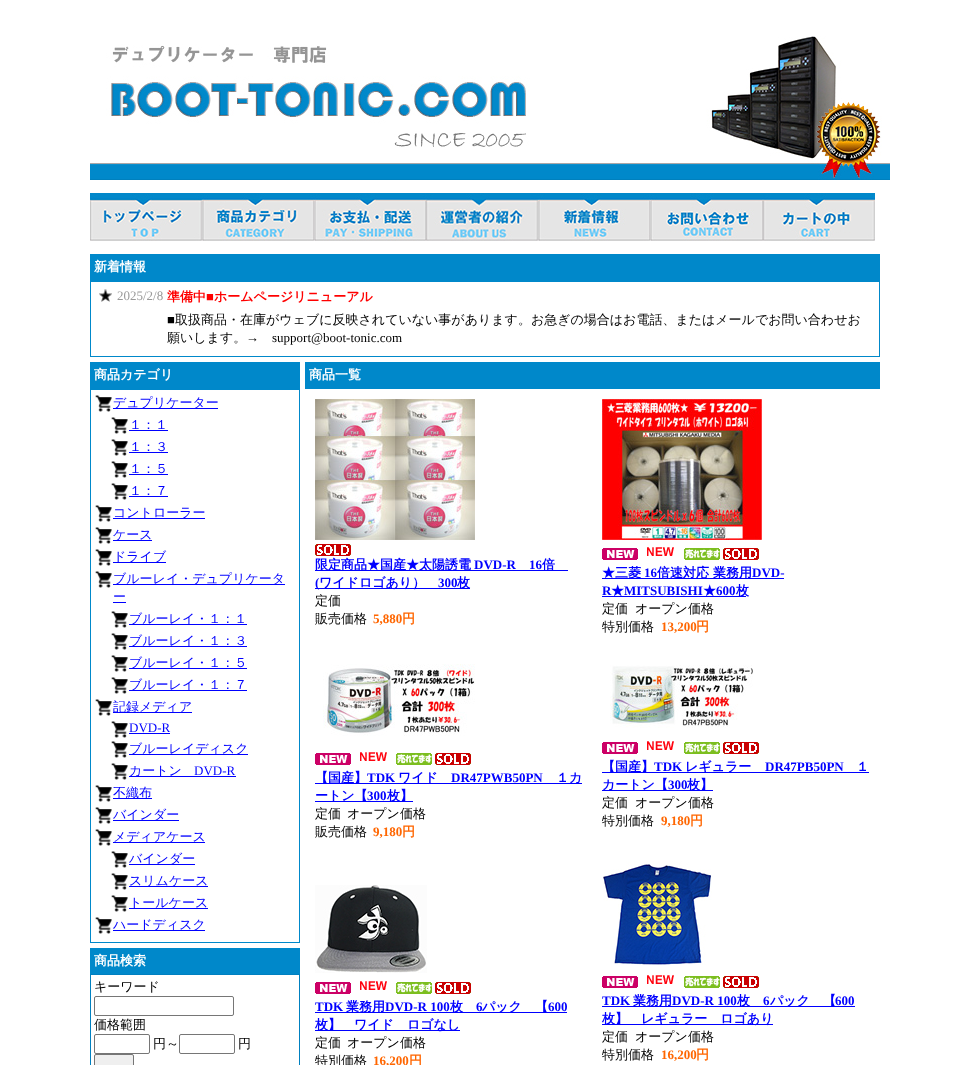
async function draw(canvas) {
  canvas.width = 969
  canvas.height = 1065
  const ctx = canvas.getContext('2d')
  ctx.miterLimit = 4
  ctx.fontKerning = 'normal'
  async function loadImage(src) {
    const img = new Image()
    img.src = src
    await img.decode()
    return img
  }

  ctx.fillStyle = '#fff'
  ctx.fillRect(0, 0, 969, 1065)
  ctx.drawImage(await loadImage('image0.png'), 90, 36, 800, 144)
  ctx.drawImage(await loadImage('image1.png'), 90, 193, 112, 48)
  ctx.drawImage(await loadImage('image2.png'), 202, 193, 112, 48)
  ctx.drawImage(await loadImage('image3.png'), 314, 193, 112, 48)
  ctx.drawImage(await loadImage('image4.png'), 426, 193, 112, 48)
  ctx.drawImage(await loadImage('image5.png'), 538, 193, 112, 48)
  ctx.drawImage(await loadImage('image6.png'), 650, 193, 113, 48)
  ctx.drawImage(await loadImage('image7.png'), 763, 193, 112, 48)
  ctx.fillStyle = '#0088ca'
  ctx.fillRect(90, 254, 790, 27)
  ctx.font = 'bold 13px WenQuanYi Zen Hei'
  ctx.fillStyle = '#fff'
  ctx.fillText('新着情報', 94, 271)
  ctx.strokeStyle = '#0088ca'
  ctx.strokeRect(90.5, 281.5, 789, 75)
  ctx.drawImage(await loadImage('image8.png'), 99, 289, 13, 13)
  ctx.font = '13px Liberation Serif'
  ctx.fillStyle = '#999'
  ctx.fillText('2025/2/8', 117, 300)
  ctx.font = 'bold 13px WenQuanYi Zen Hei'
  ctx.fillStyle = '#f00'
  ctx.fillText('準備中', 167, 301)
  ctx.font = 'bold 13px Liberation Serif'
  ctx.fillText('■', 206, 301)
  ctx.font = 'bold 13px WenQuanYi Zen Hei'
  ctx.fillText('ホームページリニューアル', 214, 301)
  ctx.font = '13px Liberation Serif'
  ctx.fillStyle = '#000'
  ctx.fillText('■', 167, 324)
  ctx.font = '500 13px WenQuanYi Zen Hei'
  ctx.fillText('取扱商品・在庫がウェブに反映されていない事があります。お急ぎの場合はお電話、またはメールでお問い合わせお', 175, 324)
  ctx.fillText('願いします。', 167, 342)
  ctx.font = '13px Liberation Serif'
  ctx.fillText('→', 246, 342)
  ctx.fillText('support@boot-tonic.com', 272, 342)
  ctx.fillStyle = '#0088ca'
  ctx.fillRect(90, 362, 210, 27)
  ctx.font = 'bold 13px WenQuanYi Zen Hei'
  ctx.fillStyle = '#fff'
  ctx.fillText('商品カテゴリ', 94, 379)
  ctx.strokeRect(90.5, 389.5, 209, 553)
  ctx.drawImage(await loadImage('image9.png'), 95, 395, 17, 17)
  ctx.fillStyle = '#00f'
  ctx.fillRect(113, 408, 105, 1)
  ctx.font = '500 13px WenQuanYi Zen Hei'
  ctx.fillText('デュプリケーター', 113, 407)
  ctx.drawImage(await loadImage('image9.png'), 111, 417, 17, 17)
  ctx.fillText('１：１', 129, 429)
  ctx.fillRect(129, 430, 39, 1)
  ctx.drawImage(await loadImage('image9.png'), 111, 439, 17, 17)
  ctx.fillText('１：３', 129, 451)
  ctx.fillRect(129, 452, 39, 1)
  ctx.drawImage(await loadImage('image9.png'), 111, 461, 17, 17)
  ctx.fillText('１：５', 129, 473)
  ctx.fillRect(129, 474, 39, 1)
  ctx.drawImage(await loadImage('image9.png'), 111, 483, 17, 17)
  ctx.fillText('１：７', 129, 495)
  ctx.fillRect(129, 496, 39, 1)
  ctx.drawImage(await loadImage('image9.png'), 95, 505, 17, 17)
  ctx.fillRect(113, 518, 92, 1)
  ctx.fillText('コントローラー', 113, 517)
  ctx.drawImage(await loadImage('image9.png'), 95, 527, 17, 17)
  ctx.fillRect(113, 540, 39, 1)
  ctx.fillText('ケース', 113, 539)
  ctx.drawImage(await loadImage('image10.png'), 95, 549, 17, 17)
  ctx.fillRect(113, 562, 53, 1)
  ctx.fillText('ドライブ', 113, 561)
  ctx.drawImage(await loadImage('image9.png'), 95, 571, 17, 17)
  ctx.fillRect(113, 584, 172, 1)
  ctx.fillText('ブルーレイ・デュプリケータ', 113, 583)
  ctx.fillText('ー', 113, 601)
  ctx.fillRect(113, 602, 13, 1)
  ctx.drawImage(await loadImage('image9.png'), 111, 611, 17, 17)
  ctx.fillRect(129, 624, 118, 1)
  ctx.fillText('ブルーレイ・１：１', 129, 623)
  ctx.drawImage(await loadImage('image9.png'), 111, 633, 17, 17)
  ctx.fillRect(129, 646, 118, 1)
  ctx.fillText('ブルーレイ・１：３', 129, 645)
  ctx.drawImage(await loadImage('image9.png'), 111, 655, 17, 17)
  ctx.fillRect(129, 668, 118, 1)
  ctx.fillText('ブルーレイ・１：５', 129, 667)
  ctx.drawImage(await loadImage('image9.png'), 111, 677, 17, 17)
  ctx.fillRect(129, 690, 118, 1)
  ctx.fillText('ブルーレイ・１：７', 129, 689)
  ctx.drawImage(await loadImage('image9.png'), 95, 699, 17, 17)
  ctx.fillRect(113, 712, 79, 1)
  ctx.fillText('記録メディア', 113, 711)
  ctx.drawImage(await loadImage('image9.png'), 111, 721, 17, 17)
  ctx.font = '13px Liberation Serif'
  ctx.fillText('DVD-R', 129, 732)
  ctx.fillRect(129, 733, 41, 1)
  ctx.drawImage(await loadImage('image9.png'), 111, 741, 17, 17)
  ctx.fillRect(129, 754, 119, 1)
  ctx.font = '500 13px WenQuanYi Zen Hei'
  ctx.fillText('ブルーレイディスク', 129, 753)
  ctx.drawImage(await loadImage('image9.png'), 111, 763, 17, 17)
  ctx.fillRect(129, 776, 107, 1)
  ctx.fillText('カートン', 129, 775)
  ctx.font = '13px Liberation Serif'
  ctx.fillText('DVD-R', 194, 775)
  ctx.drawImage(await loadImage('image9.png'), 95, 785, 17, 17)
  ctx.fillRect(113, 798, 39, 1)
  ctx.font = '500 13px WenQuanYi Zen Hei'
  ctx.fillText('不織布', 113, 797)
  ctx.drawImage(await loadImage('image9.png'), 95, 807, 17, 17)
  ctx.fillRect(113, 820, 66, 1)
  ctx.fillText('バインダー', 113, 819)
  ctx.drawImage(await loadImage('image9.png'), 95, 829, 17, 17)
  ctx.fillRect(113, 842, 92, 1)
  ctx.fillText('メディアケース', 113, 841)
  ctx.drawImage(await loadImage('image9.png'), 111, 851, 17, 17)
  ctx.fillRect(129, 864, 66, 1)
  ctx.fillText('バインダー', 129, 863)
  ctx.drawImage(await loadImage('image9.png'), 111, 873, 17, 17)
  ctx.fillRect(129, 886, 79, 1)
  ctx.fillText('スリムケース', 129, 885)
  ctx.drawImage(await loadImage('image9.png'), 111, 895, 17, 17)
  ctx.fillRect(129, 908, 79, 1)
  ctx.fillText('トールケース', 129, 907)
  ctx.drawImage(await loadImage('image9.png'), 95, 917, 17, 17)
  ctx.fillRect(113, 930, 92, 1)
  ctx.fillText('ハードディスク', 113, 929)
  ctx.fillStyle = '#0088ca'
  ctx.fillRect(90, 948, 210, 26)
  ctx.font = 'bold 13px WenQuanYi Zen Hei'
  ctx.fillStyle = '#fff'
  ctx.fillText('商品検索', 94, 965)
  ctx.strokeStyle = '#0080c0'
  ctx.strokeRect(90.5, 974.5, 209, 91)
  ctx.font = '500 13px WenQuanYi Zen Hei'
  ctx.fillStyle = '#000'
  ctx.fillText('キーワード', 94, 991)
  ctx.beginPath()
  ctx.roundRect(94.5, 996.5, 139, 19, 1.5)
  ctx.strokeStyle = '#767676'
  ctx.stroke()
  ctx.fillText('価格範囲', 94, 1029)
  ctx.beginPath()
  ctx.roundRect(94.5, 1034.5, 55, 19, 1.5)
  ctx.stroke()
  ctx.fillText('円～', 153, 1048)
  ctx.beginPath()
  ctx.roundRect(179.5, 1034.5, 55, 19, 1.5)
  ctx.stroke()
  ctx.fillText('円', 238, 1048)
  ctx.fillStyle = '#efefef'
  ctx.beginPath()
  ctx.roundRect(94.5, 1054.5, 39, 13, 1.5)
  ctx.fill()
  ctx.stroke()
  ctx.fillStyle = '#0088ca'
  ctx.fillRect(305, 362, 575, 27)
  ctx.font = 'bold 13px WenQuanYi Zen Hei'
  ctx.fillStyle = '#fff'
  ctx.fillText('商品一覧', 309, 379)
  ctx.drawImage(await loadImage('image11.png'), 315, 399, 160, 141)
  ctx.drawImage(await loadImage('image12.png'), 315, 544, 36, 12)
  ctx.fillStyle = '#00f'
  ctx.fillRect(315, 570, 253, 1)
  ctx.fillText('限定商品★国産★太陽誘電', 315, 569)
  ctx.font = 'bold 13px Liberation Serif'
  ctx.fillText('DVD-R', 474, 569)
  ctx.fillText('16', 529, 569)
  ctx.font = 'bold 13px WenQuanYi Zen Hei'
  ctx.fillText('倍', 542, 569)
  ctx.fillRect(315, 588, 155, 1)
  ctx.font = 'bold 13px Liberation Serif'
  ctx.fillText('(', 315, 587)
  ctx.font = 'bold 13px WenQuanYi Zen Hei'
  ctx.fillText('ワイドロゴあり）', 319, 587)
  ctx.font = 'bold 13px Liberation Serif'
  ctx.fillText('300', 438, 587)
  ctx.font = 'bold 13px WenQuanYi Zen Hei'
  ctx.fillText('枚', 457, 587)
  ctx.font = '500 13px WenQuanYi Zen Hei'
  ctx.fillStyle = '#000'
  ctx.fillText('定価', 315, 605)
  ctx.fillText('販売価格', 315, 623)
  ctx.font = 'bold 13px Liberation Serif'
  ctx.fillStyle = '#f60'
  ctx.fillText('5,880', 373, 623)
  ctx.font = 'bold 13px WenQuanYi Zen Hei'
  ctx.fillText('円', 402, 623)
  ctx.drawImage(await loadImage('image13.png'), 602, 399, 160, 141)
  ctx.drawImage(await loadImage('image14.png'), 602, 548, 36, 12)
  ctx.drawImage(await loadImage('image15.png'), 647, 547, 27, 9)
  ctx.drawImage(await loadImage('image16.png'), 684, 548, 36, 12)
  ctx.drawImage(await loadImage('image12.png'), 723, 548, 36, 12)
  ctx.fillStyle = '#00f'
  ctx.fillRect(602, 578, 182, 1)
  ctx.fillText('★三菱', 602, 577)
  ctx.font = 'bold 13px Liberation Serif'
  ctx.fillText('16', 644, 577)
  ctx.font = 'bold 13px WenQuanYi Zen Hei'
  ctx.fillText('倍速対応 業務用', 657, 577)
  ctx.font = 'bold 13px Liberation Serif'
  ctx.fillText('DVD-', 752, 577)
  ctx.fillText('R', 602, 595)
  ctx.font = 'bold 13px WenQuanYi Zen Hei'
  ctx.fillText('★', 611, 595)
  ctx.font = 'bold 13px Liberation Serif'
  ctx.fillText('MITSUBISHI', 624, 595)
  ctx.fillRect(602, 596, 144, 1)
  ctx.font = 'bold 13px WenQuanYi Zen Hei'
  ctx.fillText('★', 703, 595)
  ctx.font = 'bold 13px Liberation Serif'
  ctx.fillText('600', 716, 595)
  ctx.font = 'bold 13px WenQuanYi Zen Hei'
  ctx.fillText('枚', 736, 595)
  ctx.font = '500 13px WenQuanYi Zen Hei'
  ctx.fillStyle = '#000'
  ctx.fillText('定価', 602, 613)
  ctx.fillText('オープン価格', 635, 613)
  ctx.fillText('特別価格', 602, 631)
  ctx.font = 'bold 13px Liberation Serif'
  ctx.fillStyle = '#f60'
  ctx.fillText('13,200', 661, 631)
  ctx.font = 'bold 13px WenQuanYi Zen Hei'
  ctx.fillText('円', 696, 631)
  ctx.drawImage(await loadImage('image17.png'), 323, 664, 152, 72)
  ctx.drawImage(await loadImage('image14.png'), 315, 753, 36, 12)
  ctx.drawImage(await loadImage('image15.png'), 360, 752, 27, 9)
  ctx.drawImage(await loadImage('image16.png'), 396, 753, 36, 12)
  ctx.drawImage(await loadImage('image12.png'), 435, 753, 36, 12)
  ctx.fillStyle = '#00f'
  ctx.fillRect(315, 783, 267, 1)
  ctx.fillText('【国産】', 315, 782)
  ctx.font = 'bold 13px Liberation Serif'
  ctx.fillText('TDK', 367, 782)
  ctx.font = 'bold 13px WenQuanYi Zen Hei'
  ctx.fillText('ワイド', 398, 782)
  ctx.font = 'bold 13px Liberation Serif'
  ctx.fillText('DR47PWB50PN', 451, 782)
  ctx.font = 'bold 13px WenQuanYi Zen Hei'
  ctx.fillText('１カ', 556, 782)
  ctx.fillRect(315, 801, 98, 1)
  ctx.fillText('ートン【', 315, 800)
  ctx.font = 'bold 13px Liberation Serif'
  ctx.fillText('300', 367, 800)
  ctx.font = 'bold 13px WenQuanYi Zen Hei'
  ctx.fillText('枚】', 387, 800)
  ctx.font = '500 13px WenQuanYi Zen Hei'
  ctx.fillStyle = '#000'
  ctx.fillText('定価', 315, 818)
  ctx.fillText('オープン価格', 347, 818)
  ctx.fillText('販売価格', 315, 836)
  ctx.font = 'bold 13px Liberation Serif'
  ctx.fillStyle = '#f60'
  ctx.fillText('9,180', 373, 836)
  ctx.font = 'bold 13px WenQuanYi Zen Hei'
  ctx.fillText('円', 402, 836)
  ctx.drawImage(await loadImage('image18.png'), 610, 665, 143, 63)
  ctx.drawImage(await loadImage('image14.png'), 602, 742, 36, 12)
  ctx.drawImage(await loadImage('image15.png'), 647, 741, 27, 9)
  ctx.drawImage(await loadImage('image16.png'), 684, 742, 36, 12)
  ctx.drawImage(await loadImage('image12.png'), 723, 742, 36, 12)
  ctx.fillStyle = '#00f'
  ctx.fillRect(602, 772, 267, 1)
  ctx.fillText('【国産】', 602, 771)
  ctx.font = 'bold 13px Liberation Serif'
  ctx.fillText('TDK', 654, 771)
  ctx.font = 'bold 13px WenQuanYi Zen Hei'
  ctx.fillText('レギュラー', 685, 771)
  ctx.font = 'bold 13px Liberation Serif'
  ctx.fillText('DR47PB50PN', 765, 771)
  ctx.font = 'bold 13px WenQuanYi Zen Hei'
  ctx.fillText('１', 856, 771)
  ctx.fillRect(602, 790, 111, 1)
  ctx.fillText('カートン【', 602, 789)
  ctx.font = 'bold 13px Liberation Serif'
  ctx.fillText('300', 668, 789)
  ctx.font = 'bold 13px WenQuanYi Zen Hei'
  ctx.fillText('枚】', 687, 789)
  ctx.font = '500 13px WenQuanYi Zen Hei'
  ctx.fillStyle = '#000'
  ctx.fillText('定価', 602, 807)
  ctx.fillText('オープン価格', 635, 807)
  ctx.fillText('特別価格', 602, 825)
  ctx.font = 'bold 13px Liberation Serif'
  ctx.fillStyle = '#f60'
  ctx.fillText('9,180', 661, 825)
  ctx.font = 'bold 13px WenQuanYi Zen Hei'
  ctx.fillText('円', 690, 825)
  ctx.drawImage(await loadImage('image19.png'), 315, 885, 112, 88)
  ctx.drawImage(await loadImage('image14.png'), 315, 982, 36, 12)
  ctx.drawImage(await loadImage('image15.png'), 360, 981, 27, 9)
  ctx.drawImage(await loadImage('image16.png'), 396, 982, 36, 12)
  ctx.drawImage(await loadImage('image12.png'), 435, 982, 36, 12)
  ctx.font = 'bold 13px Liberation Serif'
  ctx.fillStyle = '#00f'
  ctx.fillText('TDK', 315, 1011)
  ctx.fillRect(315, 1012, 252, 1)
  ctx.font = 'bold 13px WenQuanYi Zen Hei'
  ctx.fillText('業務用', 346, 1011)
  ctx.font = 'bold 13px Liberation Serif'
  ctx.fillText('DVD-R 100', 385, 1011)
  ctx.font = 'bold 13px WenQuanYi Zen Hei'
  ctx.fillText('枚', 450, 1011)
  ctx.font = 'bold 13px Liberation Serif'
  ctx.fillText('6', 476, 1011)
  ctx.font = 'bold 13px WenQuanYi Zen Hei'
  ctx.fillText('パック　【', 482, 1011)
  ctx.font = 'bold 13px Liberation Serif'
  ctx.fillText('600', 548, 1011)
  ctx.fillRect(315, 1030, 145, 1)
  ctx.font = 'bold 13px WenQuanYi Zen Hei'
  ctx.fillText('枚】　ワイド　ロゴなし', 315, 1029)
  ctx.font = '500 13px WenQuanYi Zen Hei'
  ctx.fillStyle = '#000'
  ctx.fillText('定価', 315, 1047)
  ctx.fillText('オープン価格', 347, 1047)
  ctx.fillText('特別価格', 315, 1065)
  ctx.font = 'bold 13px Liberation Serif'
  ctx.fillStyle = '#f60'
  ctx.fillText('16,200', 373, 1065)
  ctx.font = 'bold 13px WenQuanYi Zen Hei'
  ctx.fillText('円', 409, 1065)
  ctx.drawImage(await loadImage('image20.png'), 603, 861, 109, 104)
  ctx.drawImage(await loadImage('image14.png'), 602, 976, 36, 12)
  ctx.drawImage(await loadImage('image15.png'), 647, 975, 27, 9)
  ctx.drawImage(await loadImage('image16.png'), 684, 976, 36, 12)
  ctx.drawImage(await loadImage('image12.png'), 723, 976, 36, 12)
  ctx.font = 'bold 13px Liberation Serif'
  ctx.fillStyle = '#00f'
  ctx.fillText('TDK', 602, 1005)
  ctx.fillRect(602, 1006, 253, 1)
  ctx.font = 'bold 13px WenQuanYi Zen Hei'
  ctx.fillText('業務用', 633, 1005)
  ctx.font = 'bold 13px Liberation Serif'
  ctx.fillText('DVD-R 100', 672, 1005)
  ctx.font = 'bold 13px WenQuanYi Zen Hei'
  ctx.fillText('枚', 737, 1005)
  ctx.font = 'bold 13px Liberation Serif'
  ctx.fillText('6', 763, 1005)
  ctx.font = 'bold 13px WenQuanYi Zen Hei'
  ctx.fillText('パック　【', 770, 1005)
  ctx.font = 'bold 13px Liberation Serif'
  ctx.fillText('600', 835, 1005)
  ctx.fillRect(602, 1024, 171, 1)
  ctx.font = 'bold 13px WenQuanYi Zen Hei'
  ctx.fillText('枚】　レギュラー　ロゴあり', 602, 1023)
  ctx.font = '500 13px WenQuanYi Zen Hei'
  ctx.fillStyle = '#000'
  ctx.fillText('定価', 602, 1041)
  ctx.fillText('オープン価格', 635, 1041)
  ctx.fillText('特別価格', 602, 1059)
  ctx.font = 'bold 13px Liberation Serif'
  ctx.fillStyle = '#f60'
  ctx.fillText('16,200', 661, 1059)
  ctx.font = 'bold 13px WenQuanYi Zen Hei'
  ctx.fillText('円', 696, 1059)
}

draw(document.querySelector('canvas'))
